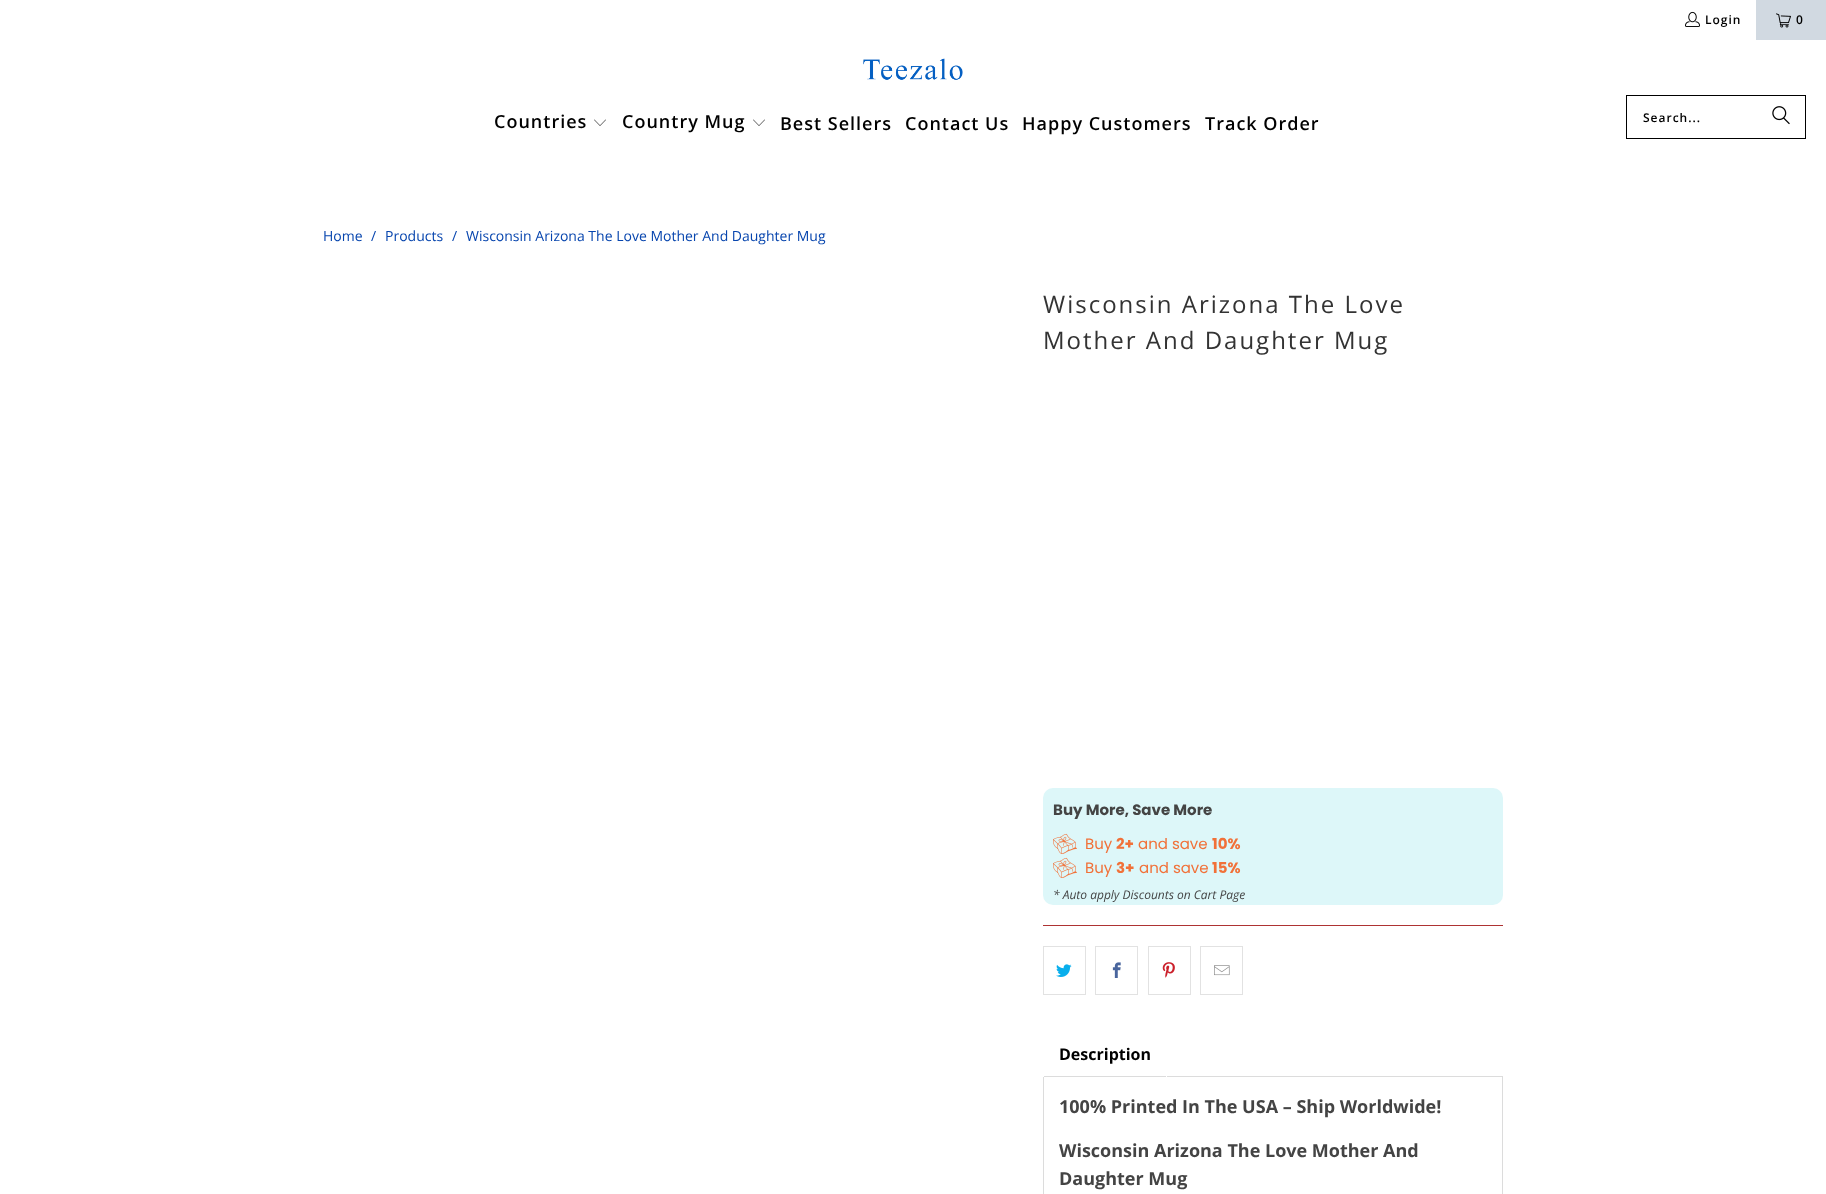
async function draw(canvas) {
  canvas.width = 1826
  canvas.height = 1194
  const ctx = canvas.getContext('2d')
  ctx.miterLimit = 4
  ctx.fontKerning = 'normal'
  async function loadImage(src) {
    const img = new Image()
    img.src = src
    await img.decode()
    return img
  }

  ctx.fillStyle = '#fff'
  ctx.fillRect(0, 0, 1826, 1194)
  ctx.drawImage(await loadImage('image0.png'), 1685, 11, 15, 16)
  ctx.letterSpacing = '1px'
  ctx.font = '600 12px Open Sans'
  ctx.fillStyle = '#000'
  ctx.fillText('Login', 1705, 24)
  ctx.fillStyle = '#d1d9e1'
  ctx.fillRect(1756, 0, 70, 40)
  ctx.drawImage(await loadImage('image1.png'), 1776, 13, 15, 15)
  ctx.fillStyle = '#000'
  ctx.fillText('0', 1796, 24)
  ctx.drawImage(await loadImage('image2.png'), 863, 58, 100, 22)
  ctx.font = '600 18px Open Sans'
  ctx.fillText('Countries', 494, 128)
  ctx.drawImage(await loadImage('image3.png'), 594, 119, 12, 7)
  ctx.fillText('Country Mug', 622, 128)
  ctx.drawImage(await loadImage('image3.png'), 753, 119, 12, 7)
  ctx.fillText('Best Sellers', 780, 130)
  ctx.fillText('Contact Us', 905, 130)
  ctx.fillText('Happy Customers', 1022, 130)
  ctx.fillText('Track Order', 1205, 130)
  ctx.strokeStyle = '#000'
  ctx.strokeRect(1626.5, 95.5, 179, 43)
  ctx.font = '600 12px Open Sans'
  ctx.fillText('Search...', 1643, 122)
  ctx.drawImage(await loadImage('image4.png'), 1772, 106, 18, 19)
  ctx.letterSpacing = '0px'
  ctx.font = '14px Open Sans'
  ctx.fillStyle = '#0745ae'
  ctx.fillText('Home', 323, 241)
  ctx.fillText('/', 371, 241)
  ctx.fillText('Products', 385, 241)
  ctx.fillText('/', 452, 241)
  ctx.fillText('Wisconsin Arizona The Love Mother And Daughter Mug', 466, 241)
  ctx.letterSpacing = '2px'
  ctx.font = '24px Open Sans'
  ctx.fillStyle = '#333'
  ctx.fillText('Wisconsin Arizona The Love', 1043, 313)
  ctx.fillText('Mother And Daughter Mug', 1043, 349)
  ctx.fillStyle = '#ddf7f9'
  ctx.beginPath()
  ctx.roundRect(1043, 788, 460, 117, 10)
  ctx.fill()
  ctx.letterSpacing = '0px'
  ctx.font = 'bold 15px Poppins'
  ctx.fillStyle = '#444'
  ctx.fillText('Buy More, Save More', 1053, 815)
  ctx.drawImage(await loadImage('image5.png'), 1053, 833, 24, 21)
  ctx.font = '15px Poppins'
  ctx.fillStyle = '#f17139'
  ctx.fillText('Buy', 1085, 849)
  ctx.font = 'bold 15px Poppins'
  ctx.fillText('2+', 1116, 849)
  ctx.font = '15px Poppins'
  ctx.fillText('and save', 1138, 849)
  ctx.font = 'bold 15px Poppins'
  ctx.fillText('10%', 1212, 849)
  ctx.drawImage(await loadImage('image5.png'), 1053, 857, 24, 21)
  ctx.font = '15px Poppins'
  ctx.fillText('Buy', 1085, 873)
  ctx.font = 'bold 15px Poppins'
  ctx.fillText('3+', 1116, 873)
  ctx.font = '15px Poppins'
  ctx.fillText('and save', 1139, 873)
  ctx.font = 'bold 15px Poppins'
  ctx.fillText('15%', 1212, 873)
  ctx.font = 'italic 12px Open Sans'
  ctx.fillStyle = '#444'
  ctx.fillText('* Auto apply Discounts on Cart Page', 1053, 899)
  ctx.fillStyle = '#ae3333'
  ctx.fillRect(1043, 925, 460, 1)
  ctx.strokeStyle = '#e2e2e2'
  ctx.strokeRect(1043.5, 946.5, 42, 48)
  ctx.drawImage(await loadImage('image6.png'), 1056, 964, 16, 13)
  ctx.strokeRect(1095.5, 946.5, 42, 48)
  ctx.drawImage(await loadImage('image7.png'), 1112, 962, 9, 16)
  ctx.strokeRect(1148.5, 946.5, 42, 48)
  ctx.drawImage(await loadImage('image8.png'), 1162, 962, 13, 16)
  ctx.strokeRect(1200.5, 946.5, 42, 48)
  ctx.drawImage(await loadImage('image9.png'), 1214, 965, 16, 11)
  ctx.strokeStyle = '#dcdcdc'
  ctx.strokeRect(1043.5, 1076.5, 459, 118)
  ctx.fillStyle = '#fff'
  ctx.fillRect(1166, 1076, 1, 1)
  ctx.fillRect(1043, 1076, 1, 1)
  ctx.font = 'bold 16px Open Sans'
  ctx.fillStyle = '#000'
  ctx.fillText('Description', 1059, 1060)
  ctx.font = 'bold 18px Open Sans'
  ctx.fillStyle = '#444'
  ctx.fillText('100% Printed In The USA – Ship Worldwide!', 1059, 1113)
  ctx.fillText('Wisconsin Arizona The Love Mother And', 1059, 1157)
  ctx.fillText('Daughter Mug', 1059, 1185)
}

draw(document.querySelector('canvas'))
